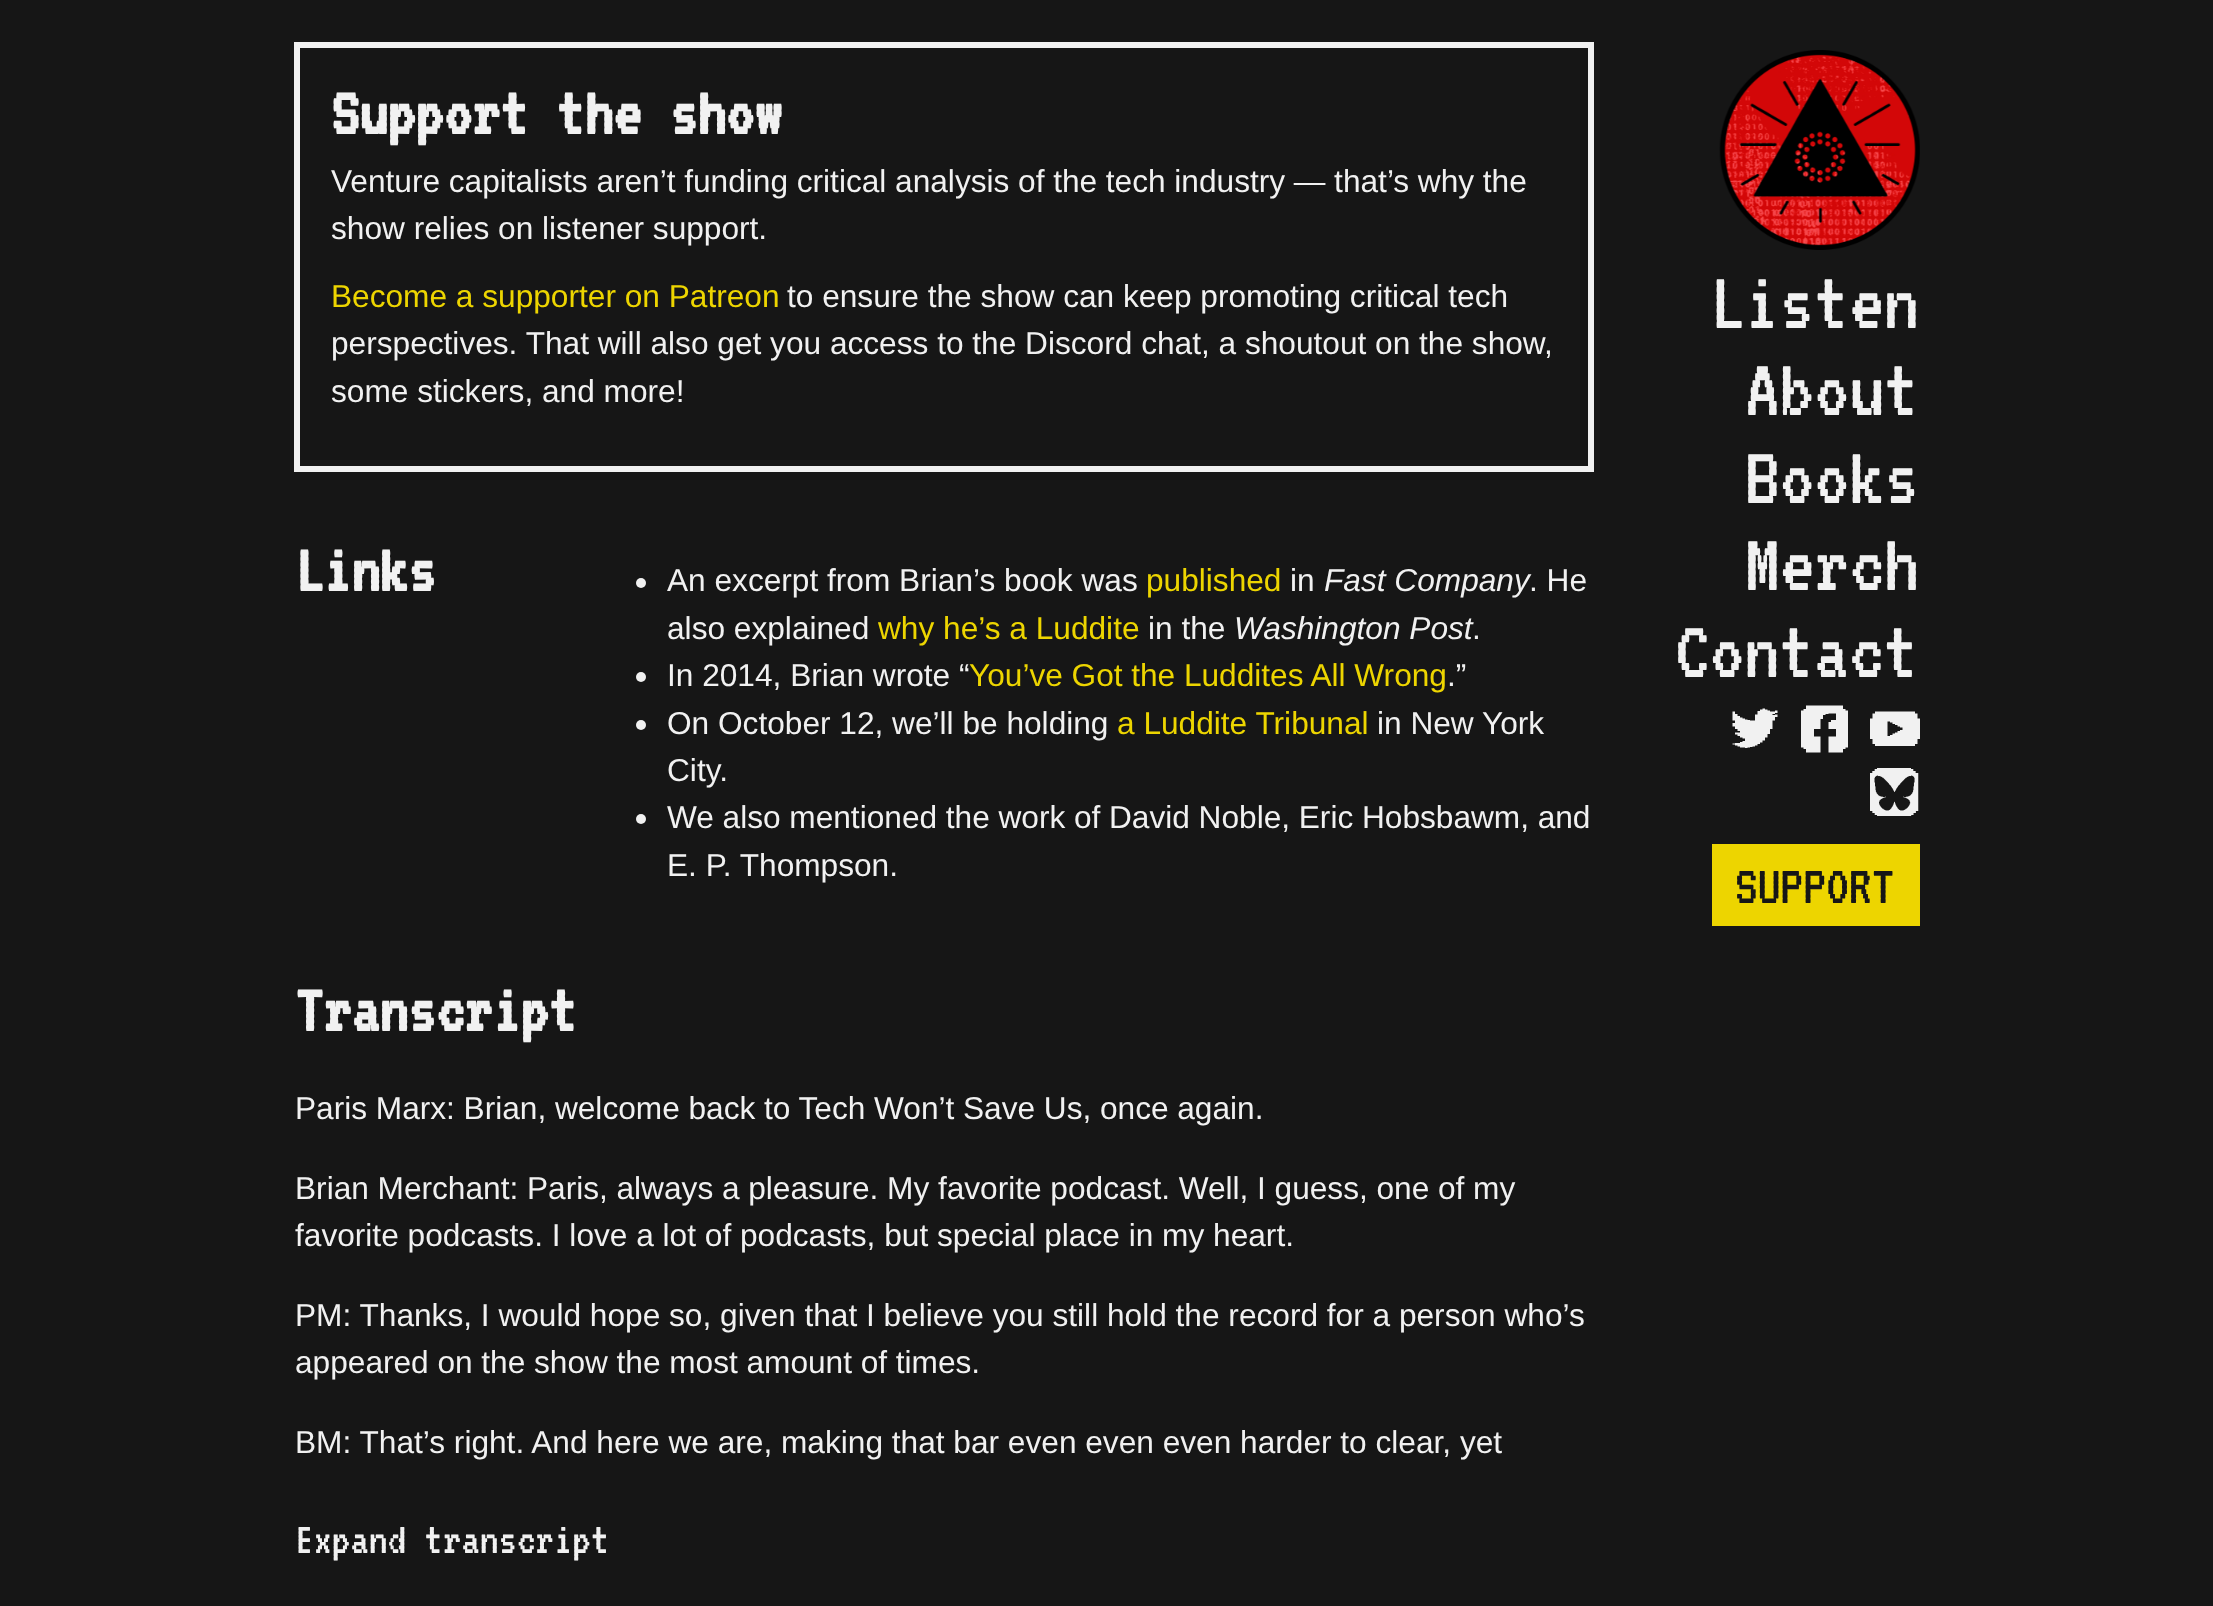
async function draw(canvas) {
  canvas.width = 2213
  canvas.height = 1606
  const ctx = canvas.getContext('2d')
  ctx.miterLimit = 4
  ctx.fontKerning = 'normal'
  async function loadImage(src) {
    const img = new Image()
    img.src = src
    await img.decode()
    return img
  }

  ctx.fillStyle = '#161616'
  ctx.fillRect(0, 0, 2213, 1606)
  ctx.strokeStyle = '#f1f1f1'
  ctx.lineWidth = 6
  ctx.strokeRect(297, 45, 1294, 424)
  ctx.font = 'bold 70.5px "VT323"'
  ctx.fillStyle = '#f1f1f1'
  ctx.fillText('Support the show', 331, 134)
  ctx.wordSpacing = '-0.1px'
  ctx.font = '31.65px Liberation Sans'
  ctx.fillText('Venture capitalists aren’t funding critical analysis of the tech industry — that’s why the', 331, 192)
  ctx.wordSpacing = '0px'
  ctx.fillText('show relies on listener support.', 331, 239)
  ctx.fillStyle = '#edd500'
  ctx.fillText('Become a supporter on Patreon', 331, 307)
  ctx.fillStyle = '#f1f1f1'
  ctx.fillText('to ensure the show can keep promoting critical tech', 787, 307)
  ctx.fillText('perspectives. That will also get you access to the Discord chat, a shoutout on the show,', 331, 354)
  ctx.fillText('some stickers, and more!', 331, 402)
  ctx.font = 'bold 70.5px "VT323"'
  ctx.fillText('Links', 295, 591)
  ctx.beginPath()
  ctx.arc(641, 583, 5, 0, 2 * Math.PI)
  ctx.fill()
  ctx.font = '31.65px Liberation Sans'
  ctx.fillText('An excerpt from Brian’s book was', 667, 591)
  ctx.fillStyle = '#edd500'
  ctx.fillText('published', 1146, 591)
  ctx.fillStyle = '#f1f1f1'
  ctx.fillText('in', 1290, 591)
  ctx.font = 'italic 31.65px Liberation Sans'
  ctx.fillText('Fast Company', 1324, 591)
  ctx.font = '31.65px Liberation Sans'
  ctx.fillText('. He', 1529, 591)
  ctx.fillText('also explained', 667, 639)
  ctx.fillStyle = '#edd500'
  ctx.fillText('why he’s a Luddite', 878, 639)
  ctx.fillStyle = '#f1f1f1'
  ctx.fillText('in the', 1148, 639)
  ctx.font = 'italic 31.65px Liberation Sans'
  ctx.fillText('Washington Post', 1234, 639)
  ctx.font = '31.65px Liberation Sans'
  ctx.fillText('.', 1472, 639)
  ctx.beginPath()
  ctx.arc(641, 677, 5, 0, 2 * Math.PI)
  ctx.fill()
  ctx.fillText('In 2014, Brian wrote “', 667, 686)
  ctx.wordSpacing = '-0.1px'
  ctx.fillStyle = '#edd500'
  ctx.fillText('You’ve Got the Luddites All Wrong', 969, 686)
  ctx.wordSpacing = '0px'
  ctx.fillStyle = '#f1f1f1'
  ctx.fillText('.”', 1447, 686)
  ctx.beginPath()
  ctx.arc(641, 725, 5, 0, 2 * Math.PI)
  ctx.fill()
  ctx.fillText('On October 12, we’ll be holding', 667, 734)
  ctx.fillStyle = '#edd500'
  ctx.fillText('a Luddite Tribunal', 1117, 734)
  ctx.fillStyle = '#f1f1f1'
  ctx.fillText('in New York', 1377, 734)
  ctx.fillText('City.', 667, 781)
  ctx.beginPath()
  ctx.arc(641, 819, 5, 0, 2 * Math.PI)
  ctx.fill()
  ctx.wordSpacing = '-0.1px'
  ctx.fillText('We also mentioned the work of David Noble, Eric Hobsbawm, and', 667, 828)
  ctx.wordSpacing = '0px'
  ctx.fillText('E. P. Thompson.', 667, 876)
  ctx.font = 'bold 70.5px "VT323"'
  ctx.fillText('Transcript', 295, 1031)
  ctx.wordSpacing = '-0.1px'
  ctx.font = '31.65px Liberation Sans'
  ctx.fillText('Paris Marx: Brian, welcome back to Tech Won’t Save Us, once again.', 295, 1119)
  ctx.fillText('Brian Merchant: Paris, always a pleasure. My favorite podcast. Well, I guess, one of my', 295, 1199)
  ctx.wordSpacing = '0px'
  ctx.fillText('favorite podcasts. I love a lot of podcasts, but special place in my heart.', 295, 1246)
  ctx.fillText('PM: Thanks, I would hope so, given that I believe you still hold the record for a person who’s', 295, 1326)
  ctx.wordSpacing = '-0.1px'
  ctx.fillText('appeared on the show the most amount of times.', 295, 1373)
  ctx.wordSpacing = '0px'
  ctx.fillText('BM: That’s right. And here we are, making that bar even even even harder to clear, yet', 295, 1453)
  ctx.font = '46.25px "VT323"'
  ctx.fillText('Expand transcript', 295, 1553)
  ctx.drawImage(await loadImage('image0.png'), 1719, 50, 201, 200)
  ctx.font = '87px "VT323"'
  ctx.fillText('Listen', 1710, 328)
  ctx.fillText('About', 1745, 415)
  ctx.fillText('Books', 1745, 503)
  ctx.fillText('Merch', 1745, 590)
  ctx.fillText('Contact', 1675, 677)
  ctx.drawImage(await loadImage('image1.png'), 1732, 708, 46, 40)
  ctx.drawImage(await loadImage('image2.png'), 1801, 705, 47, 48)
  ctx.drawImage(await loadImage('image3.png'), 1870, 711, 50, 35)
  ctx.drawImage(await loadImage('image4.png'), 1870, 768, 49, 48)
  ctx.fillStyle = '#edd500'
  ctx.fillRect(1712, 844, 208, 82)
  ctx.font = '57px "VT323"'
  ctx.fillStyle = '#161616'
  ctx.fillText('SUPPORT', 1735, 903)
}

draw(document.querySelector('canvas'))
